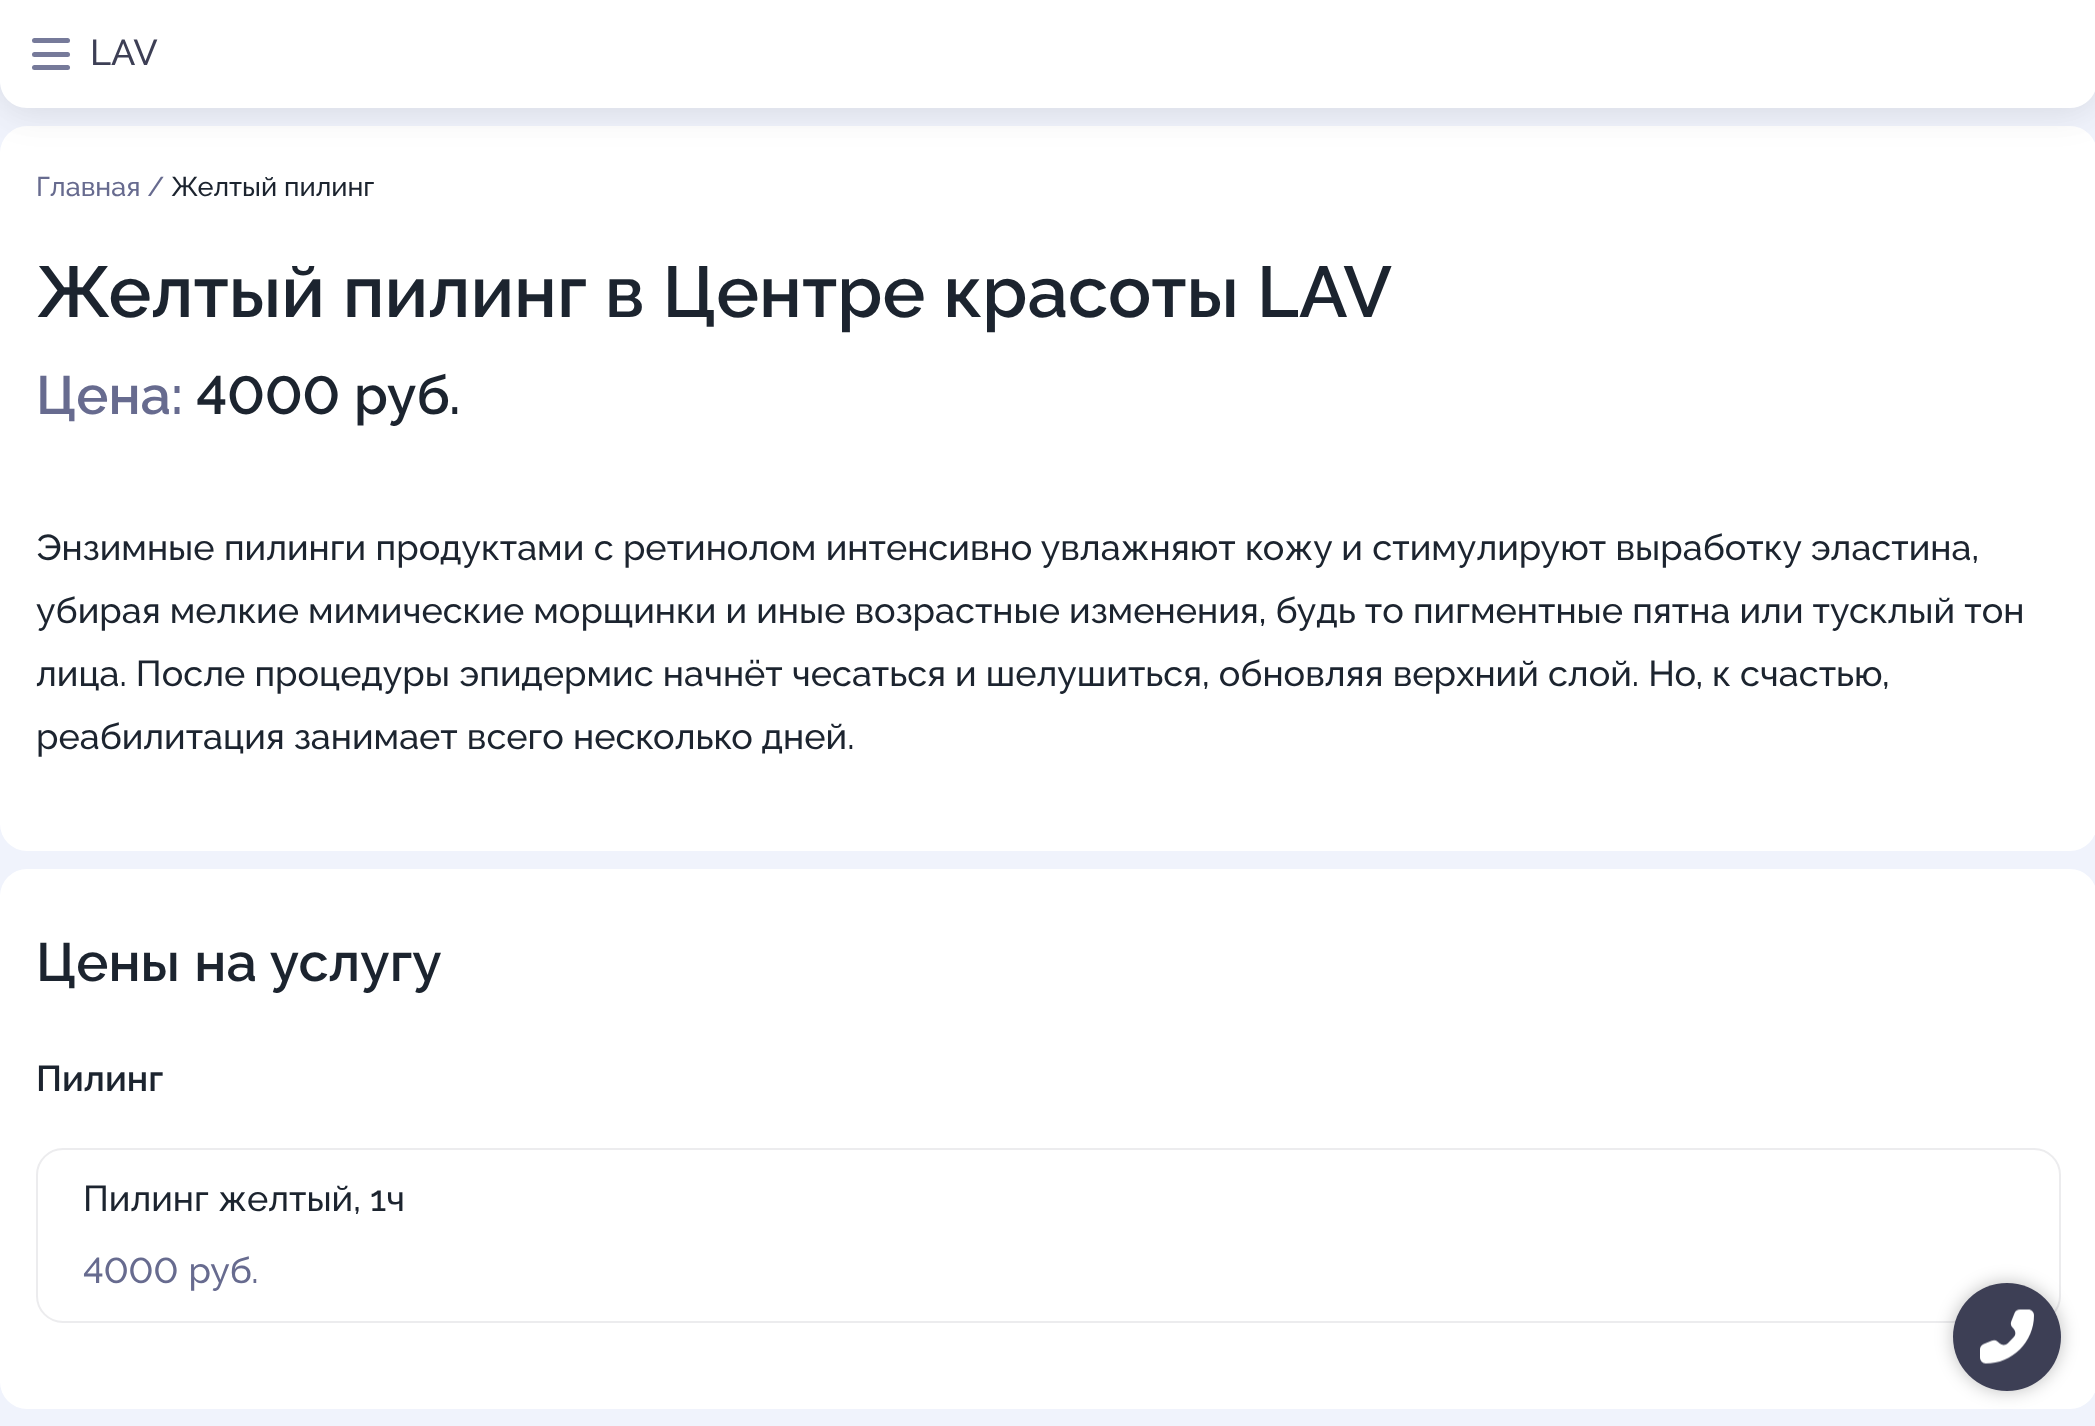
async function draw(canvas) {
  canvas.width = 2095
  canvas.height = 1426
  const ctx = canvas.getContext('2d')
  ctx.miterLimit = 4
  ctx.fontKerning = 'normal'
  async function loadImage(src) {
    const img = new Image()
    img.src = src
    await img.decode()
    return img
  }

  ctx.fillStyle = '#f0f3fc'
  ctx.fillRect(0, 0, 2095, 1426)
  ctx.fillStyle = '#fff'
  ctx.beginPath()
  ctx.roundRect(0, 126, 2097, 725, 27)
  ctx.fill()
  ctx.fillStyle = '#0000000d'
  ctx.filter = 'blur(18px)'
  ctx.beginPath()
  ctx.roundRect(0, 9, 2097, 108, 27)
  ctx.fill()
  ctx.filter = 'none'
  ctx.filter = 'blur(18px)'
  ctx.beginPath()
  ctx.roundRect(0, 0, 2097, 108, 27)
  ctx.fill()
  ctx.filter = 'none'
  ctx.fillStyle = '#fff'
  ctx.beginPath()
  ctx.moveTo(0, 0)
  ctx.lineTo(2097, 0)
  ctx.lineTo(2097, 81)
  ctx.bezierCurveTo(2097, 96, 2085, 108, 2070, 108)
  ctx.lineTo(27, 108)
  ctx.bezierCurveTo(12, 108, 0, 96, 0, 81)
  ctx.closePath()
  ctx.fill()
  ctx.fillStyle = '#767a9a'
  ctx.beginPath()
  ctx.roundRect(32, 52, 38, 5, 2.5)
  ctx.fill()
  ctx.beginPath()
  ctx.roundRect(32, 38, 38, 5, 2.5)
  ctx.fill()
  ctx.beginPath()
  ctx.roundRect(32, 65, 38, 5, 2.5)
  ctx.fill()
  ctx.font = '500 36px Raleway'
  ctx.fillStyle = '#3d3f55'
  ctx.fillText('LAV', 90, 65)
  ctx.font = '500 27px Raleway'
  ctx.fillStyle = '#676b8f'
  ctx.fillText('Главная /', 36, 196)
  ctx.fillStyle = '#1c242f'
  ctx.fillText('Желтый пилинг', 171, 196)
  ctx.font = '600 72px Raleway'
  ctx.fillText('Желтый пилинг в Центре красоты LAV', 36, 317)
  ctx.font = '600 54px Raleway'
  ctx.fillStyle = '#676b8f'
  ctx.fillText('Цена:', 36, 414)
  ctx.font = '600 54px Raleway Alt'
  ctx.fillStyle = '#1c242f'
  ctx.fillText('4000', 196, 414)
  ctx.font = '600 54px Raleway'
  ctx.fillText('руб.', 354, 414)
  ctx.wordSpacing = '0.25px'
  ctx.font = '500 36px Raleway'
  ctx.fillText('Энзимные пилинги продуктами с ретинолом интенсивно увлажняют кожу и стимулируют выработку эластина,', 36, 560)
  ctx.wordSpacing = '0px'
  ctx.fillText('убирая мелкие мимические морщинки и иные возрастные изменения, будь то пигментные пятна или тусклый тон', 36, 623)
  ctx.fillText('лица. После процедуры эпидермис начнёт чесаться и шелушиться, обновляя верхний слой. Но, к счастью,', 36, 686)
  ctx.fillText('реабилитация занимает всего несколько дней.', 36, 749)
  ctx.fillStyle = '#fff'
  ctx.beginPath()
  ctx.roundRect(0, 869, 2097, 540, 27)
  ctx.fill()
  ctx.wordSpacing = '1px'
  ctx.font = '600 54px Raleway'
  ctx.fillStyle = '#1c242f'
  ctx.fillText('Цены на услугу', 36, 981)
  ctx.wordSpacing = '0px'
  ctx.font = '600 36px Raleway'
  ctx.fillText('Пилинг', 36, 1091)
  ctx.beginPath()
  ctx.roundRect(37, 1149, 2023, 173, 26)
  ctx.strokeStyle = '#ececee'
  ctx.lineWidth = 2
  ctx.stroke()
  ctx.font = '500 36px Raleway'
  ctx.fillText('Пилинг желтый, 1ч', 83, 1211)
  ctx.wordSpacing = '1px'
  ctx.font = '500 36px Raleway Alt'
  ctx.fillStyle = '#676b8f'
  ctx.fillText('4000 руб.', 83, 1283)
  ctx.fillStyle = '#00000040'
  ctx.filter = 'blur(9px)'
  ctx.beginPath()
  ctx.roundRect(1953, 1283, 108, 108, 54)
  ctx.fill()
  ctx.filter = 'none'
  ctx.fillStyle = '#3d3f55'
  ctx.beginPath()
  ctx.arc(2007, 1337, 54, 0, 2 * Math.PI)
  ctx.fill()
  ctx.drawImage(await loadImage('image0.png'), 1980, 1309, 54, 55)
}

draw(document.querySelector('canvas'))
